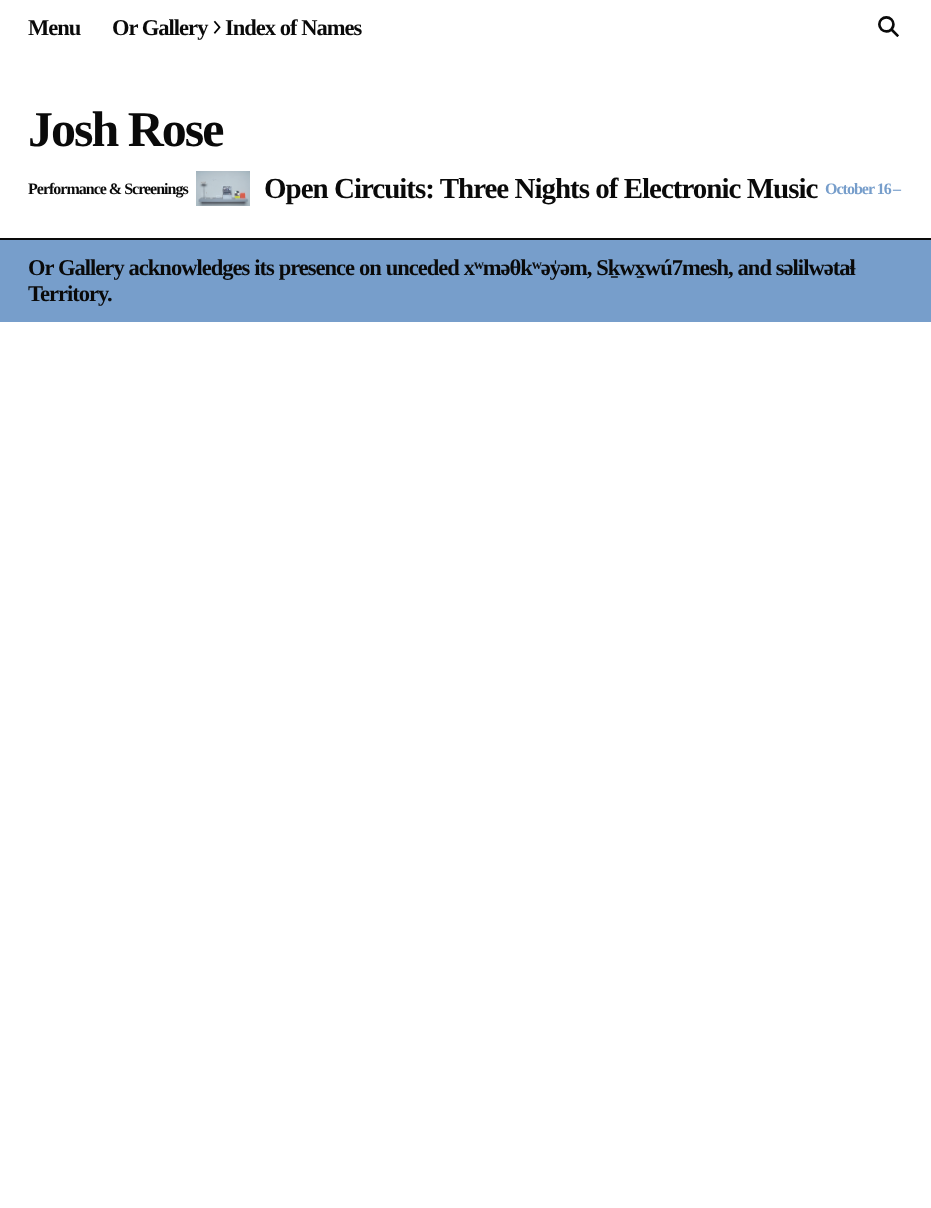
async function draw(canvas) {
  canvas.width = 931
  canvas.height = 1208
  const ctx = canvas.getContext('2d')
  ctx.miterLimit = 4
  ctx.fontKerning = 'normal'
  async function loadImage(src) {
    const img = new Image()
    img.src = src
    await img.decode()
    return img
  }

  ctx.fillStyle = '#fff'
  ctx.fillRect(0, 0, 931, 1208)
  ctx.drawImage(await loadImage('image0.png'), 878, 16, 21, 21)
  ctx.letterSpacing = '-1px'
  ctx.font = 'bold 22.55px Liberation Serif'
  ctx.fillStyle = '#0a0a0a'
  ctx.fillText('Or Gallery', 112, 35)
  ctx.drawImage(await loadImage('image1.png'), 213, 20, 8, 14)
  ctx.fillText('Index of Names', 225, 35)
  ctx.letterSpacing = '-2px'
  ctx.font = 'bold 50px Liberation Serif'
  ctx.fillText('Josh Rose', 28, 146)
  ctx.letterSpacing = '-1px'
  ctx.font = 'bold 16px Liberation Serif'
  ctx.fillText('Performance & Screenings', 28, 194)
  ctx.drawImage(await loadImage('image2.png'), 196, 171, 54, 35)
  ctx.font = 'bold 29px Liberation Serif'
  ctx.fillText('Open Circuits: Three Nights of Electronic Music', 264, 198)
  ctx.font = 'bold 16px Liberation Serif'
  ctx.fillStyle = '#779ecb'
  ctx.fillText('October 16', 825, 194)
  ctx.fillText('–', 893, 194)
  ctx.font = 'bold 22.55px Liberation Serif'
  ctx.fillStyle = '#0a0a0a'
  ctx.fillText('Menu', 28, 35)
  ctx.fillRect(0, 238, 931, 2)
  ctx.fillStyle = '#779ecb'
  ctx.fillRect(0, 240, 931, 82)
  ctx.wordSpacing = '0.25px'
  ctx.fillStyle = '#0a0a0a'
  ctx.fillText('Or Gallery acknowledges its presence on unceded xʷməθkʷəy̍əm, Sḵwx̱wú7mesh, and səlilwətaɬ', 28, 275)
  ctx.wordSpacing = '0px'
  ctx.fillText('Territory.', 28, 301)
}

draw(document.querySelector('canvas'))
